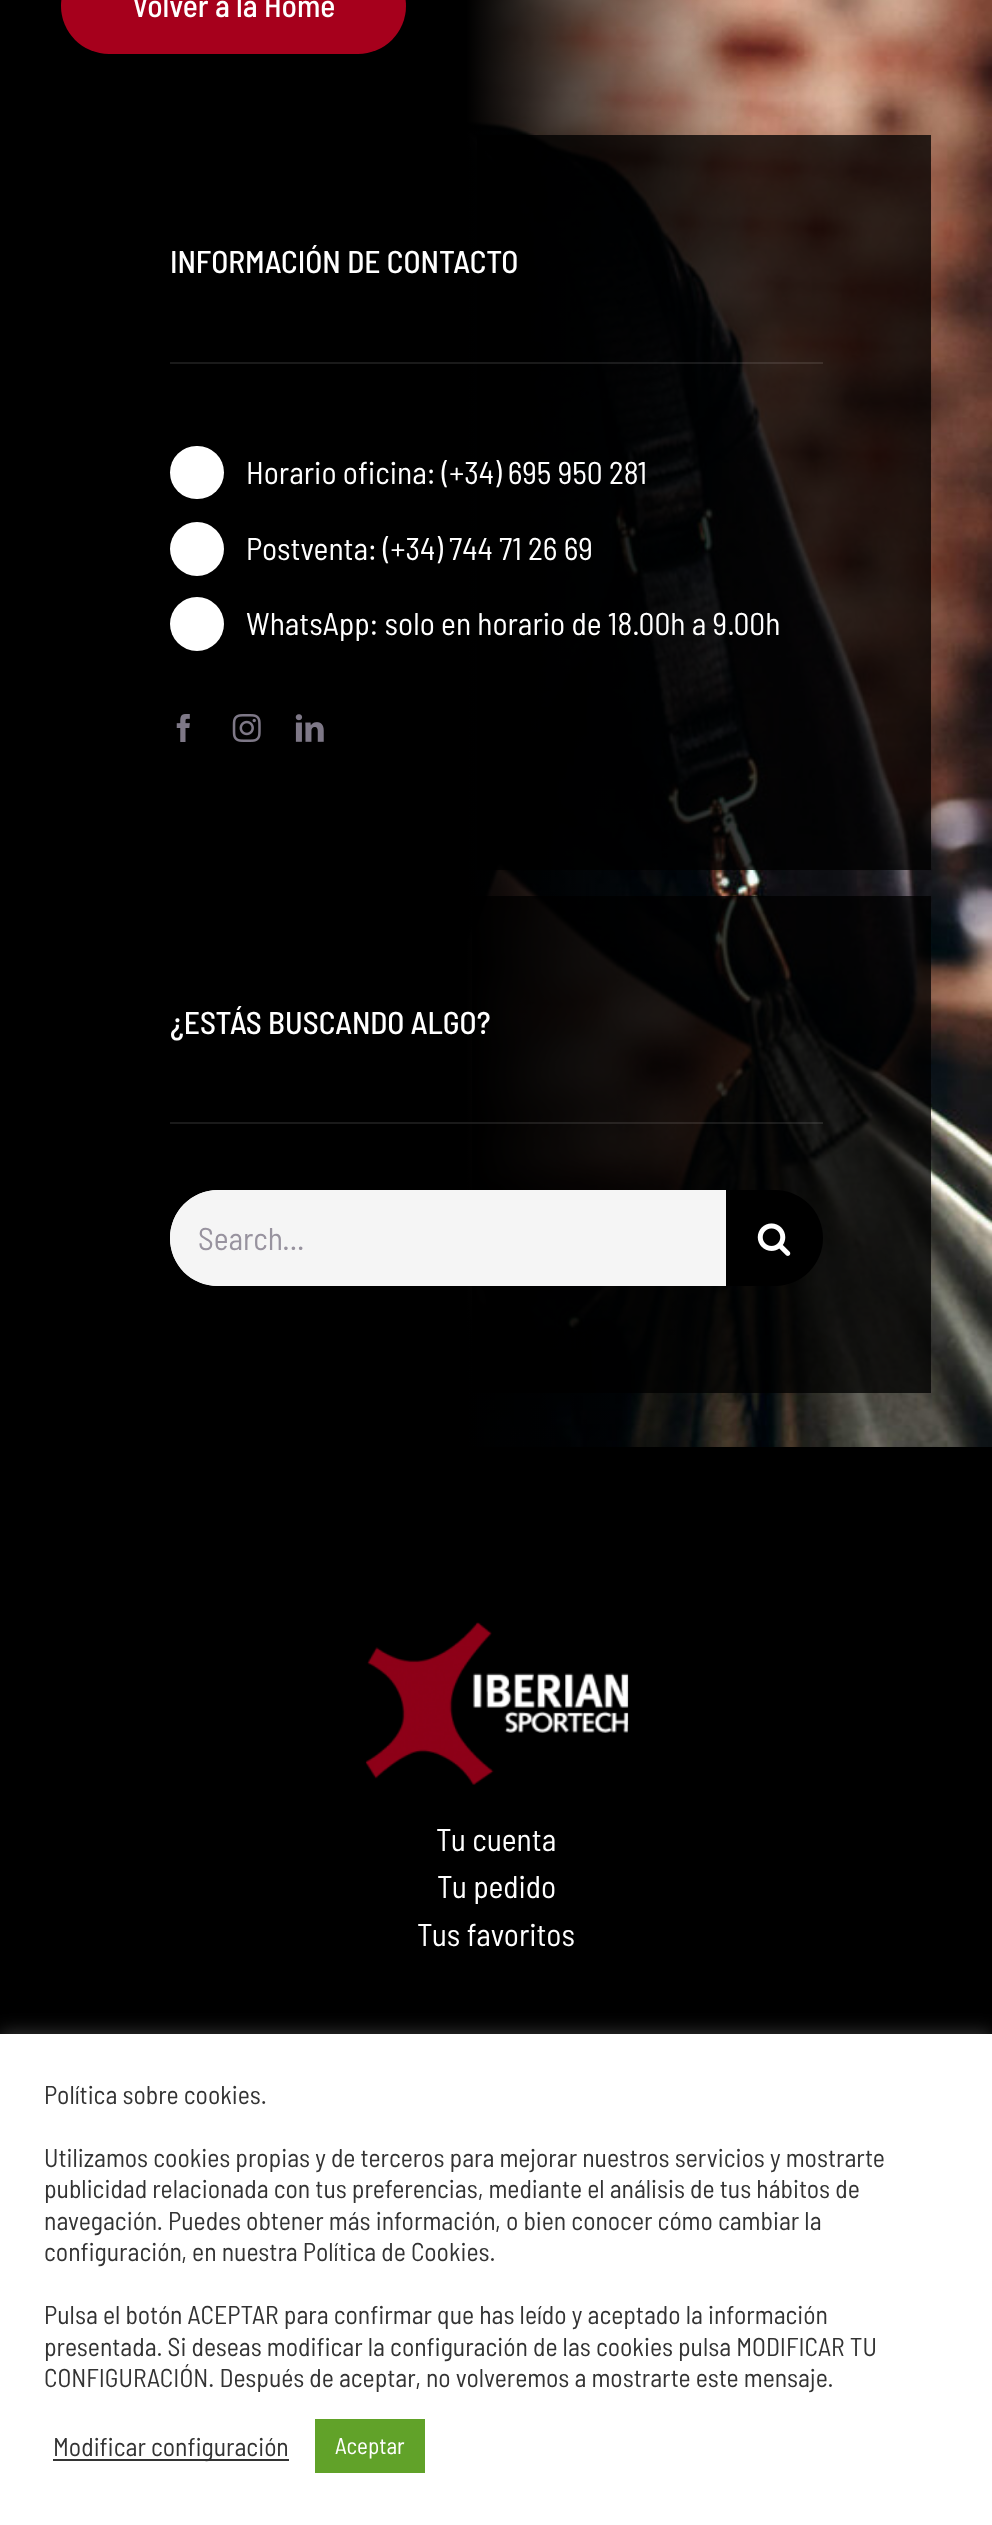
async function draw(canvas) {
  canvas.width = 992
  canvas.height = 2525
  const ctx = canvas.getContext('2d')
  ctx.miterLimit = 4
  ctx.fontKerning = 'normal'
  async function loadImage(src) {
    const img = new Image()
    img.src = src
    await img.decode()
    return img
  }

  ctx.fillStyle = '#fff'
  ctx.fillRect(0, 0, 992, 2525)
  ctx.drawImage(await loadImage('image0.png'), 0, 0, 992, 1447)
  ctx.fillStyle = '#a6001c'
  ctx.beginPath()
  ctx.roundRect(61, -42, 345, 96, 48)
  ctx.fill()
  ctx.font = '500 31.5px Barlow Semi Condensed'
  ctx.fillStyle = '#fff'
  ctx.fillText('Volver a la Home', 132, 17)
  ctx.fillStyle = '#000000c4'
  ctx.fillRect(477, 135, 454, 735)
  ctx.fillStyle = '#fff'
  ctx.fillText('INFORMACIÓN DE CONTACTO', 170, 273)
  ctx.fillStyle = '#ffffff1a'
  ctx.fillRect(170, 362, 653, 2)
  ctx.fillStyle = '#fff'
  ctx.beginPath()
  ctx.roundRect(170, 446, 54, 53, 26.5)
  ctx.fill()
  ctx.font = '31.5px Barlow Semi Condensed'
  ctx.fillText('Horario oficina: (+34) 695 950 281', 246, 484)
  ctx.beginPath()
  ctx.arc(197, 549, 27, 0, 2 * Math.PI)
  ctx.fill()
  ctx.fillText('Postventa: (+34) 744 71 26 69', 246, 560)
  ctx.beginPath()
  ctx.arc(197, 624, 27, 0, 2 * Math.PI)
  ctx.fill()
  ctx.fillText('WhatsApp: solo en horario de 18.00h a 9.00h', 246, 635)
  ctx.drawImage(await loadImage('image1.png'), 176, 714, 14, 28)
  ctx.drawImage(await loadImage('image2.png'), 232, 714, 29, 28)
  ctx.drawImage(await loadImage('image3.png'), 295, 714, 29, 28)
  ctx.fillStyle = '#000000c4'
  ctx.fillRect(472, 896, 459, 497)
  ctx.font = '500 31.5px Barlow Semi Condensed'
  ctx.fillStyle = '#fff'
  ctx.fillText('¿ESTÁS BUSCANDO ALGO?', 170, 1034)
  ctx.fillStyle = '#ffffff1a'
  ctx.fillRect(170, 1122, 653, 2)
  ctx.fillStyle = '#f5f5f5'
  ctx.beginPath()
  ctx.roundRect(170, 1190, 556, 96, [48, 0, 0, 48])
  ctx.fill()
  ctx.beginPath()
  ctx.moveTo(218, 1190)
  ctx.bezierCurveTo(191, 1190, 170, 1212, 170, 1238)
  ctx.bezierCurveTo(170, 1265, 191, 1286, 218, 1286)
  ctx.lineTo(726, 1286)
  ctx.lineTo(726, 1284)
  ctx.lineTo(218, 1284)
  ctx.bezierCurveTo(192, 1284, 172, 1264, 172, 1238)
  ctx.bezierCurveTo(172, 1213, 192, 1192, 218, 1192)
  ctx.lineTo(726, 1192)
  ctx.lineTo(726, 1190)
  ctx.closePath()
  ctx.fill()
  ctx.font = '31.5px Barlow Semi Condensed'
  ctx.fillStyle = '#98939f'
  ctx.fillText('Search...', 198, 1250)
  ctx.fillStyle = '#000'
  ctx.beginPath()
  ctx.roundRect(726, 1190, 97, 96, [0, 48, 48, 0])
  ctx.fill()
  ctx.drawImage(await loadImage('image4.png'), 757, 1223, 34, 33)
  ctx.fillRect(0, 1447, 992, 587)
  ctx.drawImage(await loadImage('image5.png'), 365, 1622, 264, 163)
  ctx.fillStyle = '#fff'
  ctx.fillText('Tu cuenta', 436, 1851)
  ctx.fillText('Tu pedido', 437, 1898)
  ctx.fillText('Tus favoritos', 417, 1946)
  ctx.fillStyle = '#acabab4d'
  ctx.filter = 'blur(9px)'
  ctx.beginPath()
  ctx.rect(0, 2032, 992, 492)
  ctx.fill()
  ctx.filter = 'none'
  ctx.fillStyle = '#fff'
  ctx.fillRect(0, 2034, 992, 491)
  ctx.font = '25.7px Barlow Semi Condensed'
  ctx.fillStyle = '#333'
  ctx.fillText('Política sobre cookies.', 44, 2104)
  ctx.fillText('Utilizamos cookies propias y de terceros para mejorar nuestros servicios y mostrarte', 44, 2167)
  ctx.fillText('publicidad relacionada con tus preferencias, mediante el análisis de tus hábitos de', 44, 2198)
  ctx.fillText('navegación. Puedes obtener más información, o bien conocer cómo cambiar la', 44, 2230)
  ctx.fillText('configuración, en nuestra Política de Cookies.', 44, 2261)
  ctx.fillText('Pulsa el botón ACEPTAR para confirmar que has leído y aceptado la información', 44, 2324)
  ctx.fillText('presentada. Si deseas modificar la configuración de las cookies pulsa MODIFICAR TU', 44, 2356)
  ctx.fillText('CONFIGURACIÓN. Después de aceptar, no volveremos a mostrarte este mensaje.', 44, 2387)
  ctx.fillRect(53, 2459, 236, 2)
  ctx.fillText('Modificar configuración', 53, 2456)
  ctx.fillStyle = '#61a229'
  ctx.fillRect(315, 2419, 110, 54)
  ctx.font = '23px Barlow Semi Condensed'
  ctx.fillStyle = '#fff'
  ctx.fillText('Aceptar', 335, 2454)
}

draw(document.querySelector('canvas'))
